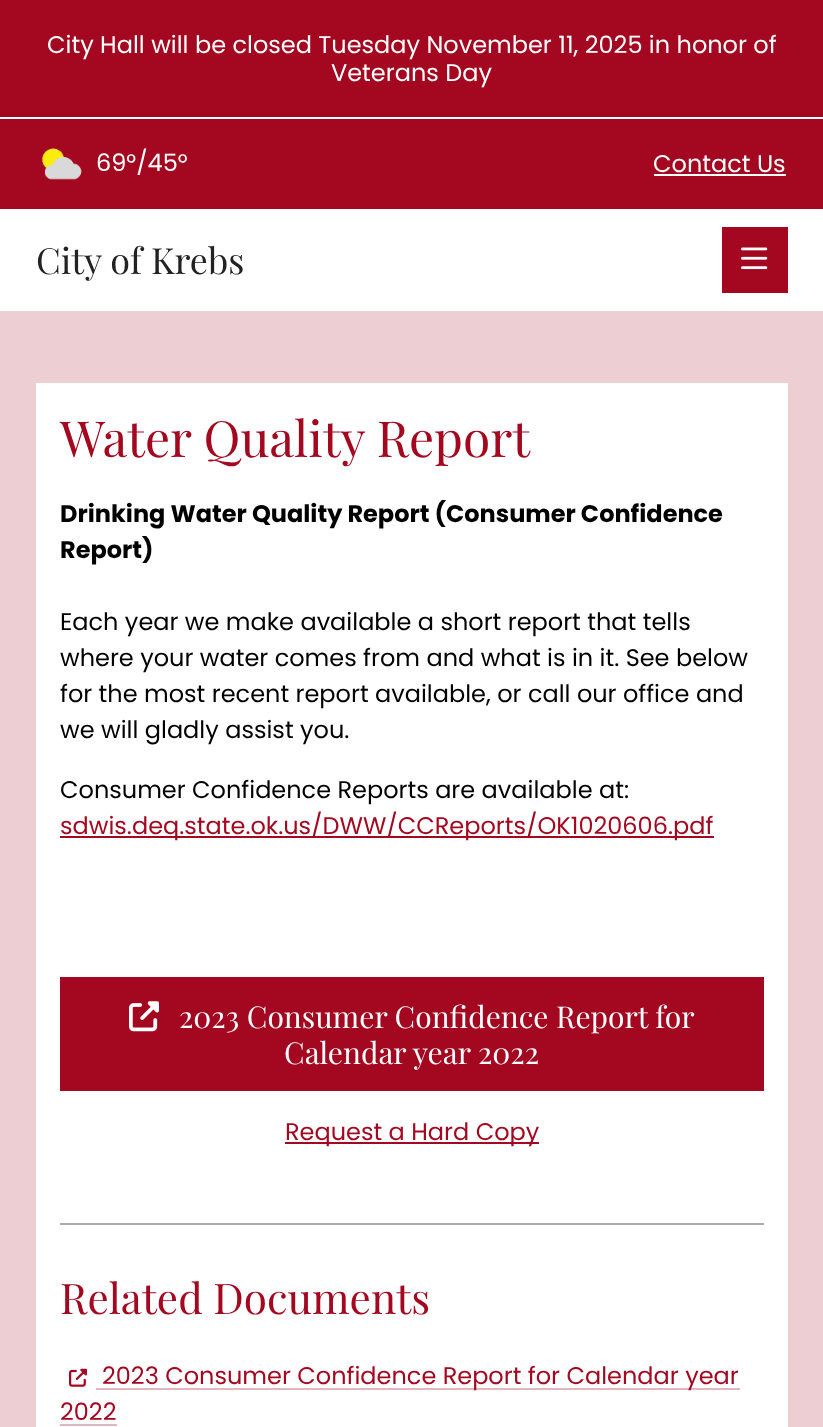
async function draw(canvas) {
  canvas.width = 823
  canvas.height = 1427
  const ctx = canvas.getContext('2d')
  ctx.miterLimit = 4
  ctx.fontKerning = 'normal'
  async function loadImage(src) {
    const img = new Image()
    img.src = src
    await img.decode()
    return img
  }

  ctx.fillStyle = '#edced2'
  ctx.fillRect(0, 0, 823, 1427)
  ctx.fillStyle = '#a30820'
  ctx.fillRect(0, 0, 823, 209)
  ctx.fillStyle = '#fff'
  ctx.fillRect(0, 117, 823, 2)
  ctx.font = '24px Poppins'
  ctx.fillText('City Hall will be closed Tuesday November 11, 2025 in honor of', 47, 53)
  ctx.fillText('Veterans Day', 331, 81)
  ctx.drawImage(await loadImage('image0.png'), 42, 148, 40, 32)
  ctx.fillText('69°/45°', 96, 171)
  ctx.fillText('Contact Us', 653, 172)
  ctx.fillRect(654, 174, 132, 2)
  ctx.fillRect(0, 209, 823, 102)
  ctx.font = '36px Playfair Display'
  ctx.fillStyle = '#222'
  ctx.fillText('City of Krebs', 36, 274)
  ctx.fillStyle = '#a30820'
  ctx.fillRect(722, 227, 66, 66)
  ctx.drawImage(await loadImage('image1.png'), 741, 247, 27, 23)
  ctx.fillStyle = '#fff'
  ctx.fillRect(36, 383, 752, 1044)
  ctx.font = '49.75px Playfair Display'
  ctx.fillStyle = '#a30820'
  ctx.fillText('Water Quality Report', 60, 457)
  ctx.font = 'bold 24px Poppins'
  ctx.fillStyle = '#000'
  ctx.fillText('Drinking Water Quality Report (Consumer Confidence', 60, 522)
  ctx.fillText('Report)', 60, 558)
  ctx.font = '24px Poppins'
  ctx.fillText('Each year we make available a short report that tells', 60, 630)
  ctx.fillText('where your water comes from and what is in it. See below', 60, 666)
  ctx.fillText('for the most recent report available, or call our office and', 60, 702)
  ctx.fillText('we will gladly assist you.', 60, 738)
  ctx.fillText('Consumer Confidence Reports are available at:', 60, 798)
  ctx.fillStyle = '#a30820'
  ctx.fillRect(60, 836, 654, 2)
  ctx.fillText('sdwis.deq.state.ok.us/DWW/CCReports/OK1020606.pdf', 60, 834)
  ctx.fillRect(60, 977, 704, 114)
  ctx.drawImage(await loadImage('image2.png'), 129, 1001, 30, 31)
  ctx.font = '30px Playfair Display'
  ctx.fillStyle = '#fff'
  ctx.fillText('2023 Consumer Confidence Report for', 179, 1028)
  ctx.fillText('Calendar year 2022', 284, 1064)
  ctx.fillStyle = '#a30820'
  ctx.fillRect(285, 1142, 254, 2)
  ctx.font = '24px Poppins'
  ctx.fillText('Request a Hard Copy', 285, 1140)
  ctx.fillStyle = '#aaa'
  ctx.fillRect(60, 1223, 704, 2)
  ctx.font = '42.25px Playfair Display'
  ctx.fillStyle = '#a30820'
  ctx.fillText('Related Documents', 60, 1314)
  ctx.drawImage(await loadImage('image3.png'), 69, 1368, 18, 19)
  ctx.fillStyle = '#e3b5bc'
  ctx.fillRect(96, 1388, 644, 2)
  ctx.font = '24px Poppins'
  ctx.fillStyle = '#a30820'
  ctx.fillText('2023 Consumer Confidence Report for Calendar year', 102, 1384)
  ctx.fillText('2022', 60, 1420)
  ctx.fillStyle = '#e3b5bc'
  ctx.fillRect(60, 1424, 57, 2)
}

draw(document.querySelector('canvas'))
